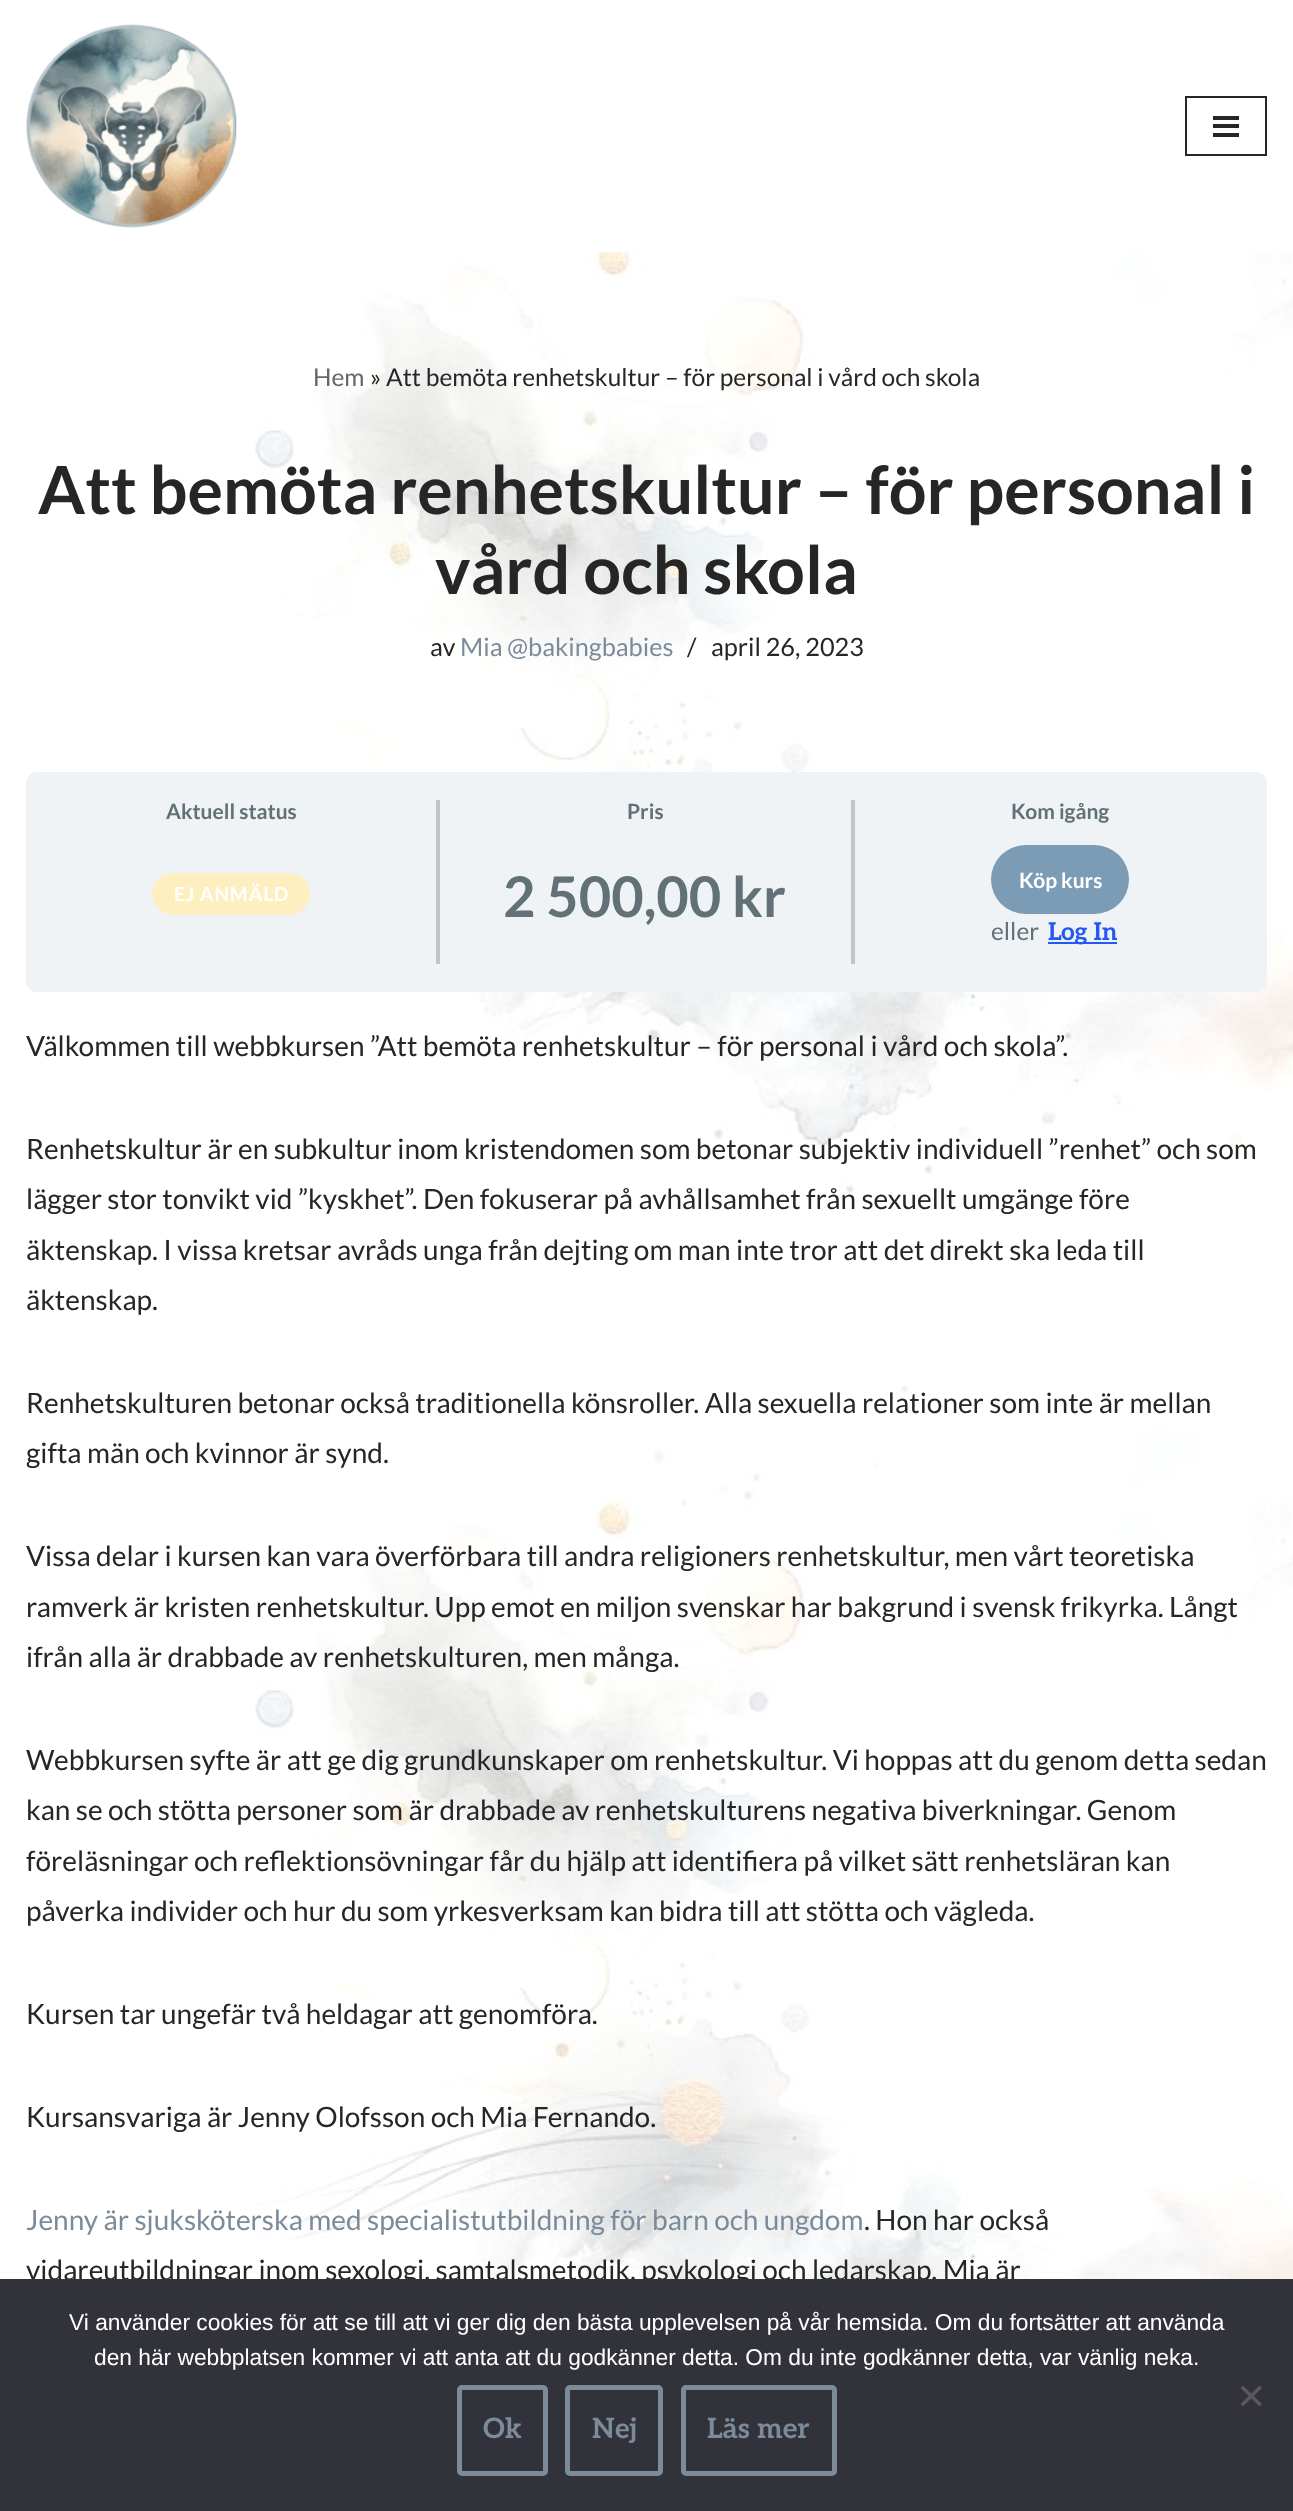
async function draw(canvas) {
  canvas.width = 1293
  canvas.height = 2511
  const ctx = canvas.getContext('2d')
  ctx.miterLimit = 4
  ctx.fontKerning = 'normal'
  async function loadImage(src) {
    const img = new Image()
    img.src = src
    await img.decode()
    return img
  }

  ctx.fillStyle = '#fff'
  ctx.fillRect(0, 0, 1293, 2511)
  ctx.drawImage(await loadImage('image0.png'), 255, 252, 1038, 2027)
  ctx.drawImage(await loadImage('image1.png'), 26, 24, 211, 204)
  ctx.strokeStyle = '#272626'
  ctx.lineWidth = 2
  ctx.strokeRect(1186, 97, 80, 58)
  ctx.fillStyle = '#272626'
  ctx.fillRect(1213, 116, 26, 4)
  ctx.fillRect(1213, 124, 26, 4)
  ctx.fillRect(1213, 133, 26, 4)
  ctx.font = '24.5px Lato'
  ctx.fillStyle = '#676767'
  ctx.fillText('Hem', 313, 386)
  ctx.fillStyle = '#272626'
  ctx.fillText('» Att bemöta renhetskultur – för personal i vård och skola', 370, 386)
  ctx.font = 'bold 66.5px Lato'
  ctx.fillText('Att bemöta renhetskultur – för personal i', 38, 514)
  ctx.fillText('vård och skola', 435, 594)
  ctx.font = '25.25px Lato'
  ctx.fillText('av', 430, 656)
  ctx.fillStyle = '#7b8b99'
  ctx.fillText('Mia @bakingbabies', 460, 656)
  ctx.fillStyle = '#272626'
  ctx.fillText('/', 687, 656)
  ctx.fillText('april 26, 2023', 711, 656)
  ctx.fillStyle = '#f0f3f6'
  ctx.beginPath()
  ctx.roundRect(26, 772, 1241, 220, 11)
  ctx.fill()
  ctx.fillStyle = '#bec5cb'
  ctx.fillRect(436, 800, 4, 164)
  ctx.font = 'bold 21px Lato'
  ctx.fillStyle = '#617175'
  ctx.fillText('Aktuell status', 166, 819)
  ctx.fillStyle = '#feefc1'
  ctx.beginPath()
  ctx.roundRect(152, 873, 158, 42, 21)
  ctx.fill()
  ctx.letterSpacing = '0.9px'
  ctx.font = 'bold 19.25px Lato'
  ctx.fillStyle = '#fff'
  ctx.fillText('EJ ANMÄLD', 174, 901)
  ctx.fillStyle = '#bec5cb'
  ctx.fillRect(851, 800, 4, 164)
  ctx.letterSpacing = '0px'
  ctx.font = 'bold 21px Lato'
  ctx.fillStyle = '#617175'
  ctx.fillText('Pris', 627, 819)
  ctx.font = 'bold 56px Lato'
  ctx.fillText('2 500,00 kr', 503, 917)
  ctx.font = 'bold 21px Lato'
  ctx.fillText('Kom igång', 1011, 819)
  ctx.fillStyle = '#7c9bb5'
  ctx.beginPath()
  ctx.roundRect(991, 845, 138, 69, 34.5)
  ctx.fill()
  ctx.fillStyle = '#fff'
  ctx.fillText('Köp kurs', 1019, 888)
  ctx.font = '24.5px Lato'
  ctx.fillStyle = '#617175'
  ctx.fillText('eller', 991, 940)
  ctx.fillStyle = '#235af3'
  ctx.fillRect(1048, 942, 69, 2)
  ctx.font = 'bold 24.5px Aleo'
  ctx.fillText('Log In', 1048, 940)
  ctx.font = '28px Lato'
  ctx.fillStyle = '#272626'
  ctx.fillText('Välkommen till webbkursen ”Att bemöta renhetskultur – för personal i vård och skola”.', 26, 1056)
  ctx.fillText('Renhetskultur är en subkultur inom kristendomen som betonar subjektiv individuell ”renhet” och som', 26, 1159)
  ctx.fillText('lägger stor tonvikt vid ”kyskhet”. Den fokuserar på avhållsamhet från sexuellt umgänge före', 26, 1209)
  ctx.fillText('äktenskap. I vissa kretsar avråds unga från dejting om man inte tror att det direkt ska leda till', 26, 1260)
  ctx.fillText('äktenskap.', 26, 1310)
  ctx.fillText('Renhetskulturen betonar också traditionella könsroller. Alla sexuella relationer som inte är mellan', 26, 1413)
  ctx.fillText('gifta män och kvinnor är synd.', 26, 1463)
  ctx.fillText('Vissa delar i kursen kan vara överförbara till andra religioners renhetskultur, men vårt teoretiska', 26, 1566)
  ctx.fillText('ramverk är kristen renhetskultur. Upp emot en miljon svenskar har bakgrund i svensk frikyrka. Långt', 26, 1617)
  ctx.fillText('ifrån alla är drabbade av renhetskulturen, men många.', 26, 1667)
  ctx.fillText('Webbkursen syfte är att ge dig grundkunskaper om renhetskultur. Vi hoppas att du genom detta sedan', 26, 1770)
  ctx.fillText('kan se och stötta personer som är drabbade av renhetskulturens negativa biverkningar. Genom', 26, 1820)
  ctx.fillText('föreläsningar och reflektionsövningar får du hjälp att identifiera på vilket sätt renhetsläran kan', 26, 1871)
  ctx.fillText('påverka individer och hur du som yrkesverksam kan bidra till att stötta och vägleda.', 26, 1921)
  ctx.fillText('Kursen tar ungefär två heldagar att genomföra.', 26, 2024)
  ctx.fillText('Kursansvariga är Jenny Olofsson och Mia Fernando.', 26, 2127)
  ctx.fillStyle = '#7b8b99'
  ctx.fillText('Jenny är sjuksköterska med specialistutbildning för barn och ungdom', 26, 2230)
  ctx.fillStyle = '#272626'
  ctx.fillText('. Hon har också', 864, 2230)
  ctx.fillText('vidareutbildningar inom sexologi, samtalsmetodik, psykologi och ledarskap. Mia är', 26, 2280)
  ctx.fillStyle = '#32323a'
  ctx.fillRect(0, 2279, 1293, 232)
  ctx.font = '22.75px Liberation Sans'
  ctx.fillStyle = '#fff'
  ctx.fillText('Vi använder cookies för att se till att vi ger dig den bästa upplevelsen på vår hemsida. Om du fortsätter att använda', 69, 2330)
  ctx.fillText('den här webbplatsen kommer vi att anta att du godkänner detta. Om du inte godkänner detta, var vänlig neka.', 94, 2365)
  ctx.fillStyle = '#59595d'
  ctx.beginPath()
  ctx.moveTo(1259.5, 2385.5)
  ctx.lineTo(1262, 2388)
  ctx.lineTo(1243, 2406.5)
  ctx.lineTo(1240.5, 2404)
  ctx.closePath()
  ctx.fill()
  ctx.beginPath()
  ctx.moveTo(1240.5, 2388)
  ctx.lineTo(1243, 2385.5)
  ctx.lineTo(1262, 2404)
  ctx.lineTo(1259.5, 2406.5)
  ctx.closePath()
  ctx.fill()
  ctx.beginPath()
  ctx.roundRect(459.5, 2387.5, 86, 86, 2.5)
  ctx.strokeStyle = '#7b8b99'
  ctx.lineWidth = 5
  ctx.stroke()
  ctx.font = 'bold 28px Aleo'
  ctx.fillStyle = '#7b8b99'
  ctx.fillText('Ok', 483, 2438)
  ctx.beginPath()
  ctx.roundRect(567.5, 2387.5, 93, 86, 2.5)
  ctx.stroke()
  ctx.fillText('Nej', 592, 2438)
  ctx.beginPath()
  ctx.roundRect(683.5, 2387.5, 151, 86, 2.5)
  ctx.stroke()
  ctx.fillText('Läs mer', 707, 2438)
}

draw(document.querySelector('canvas'))
